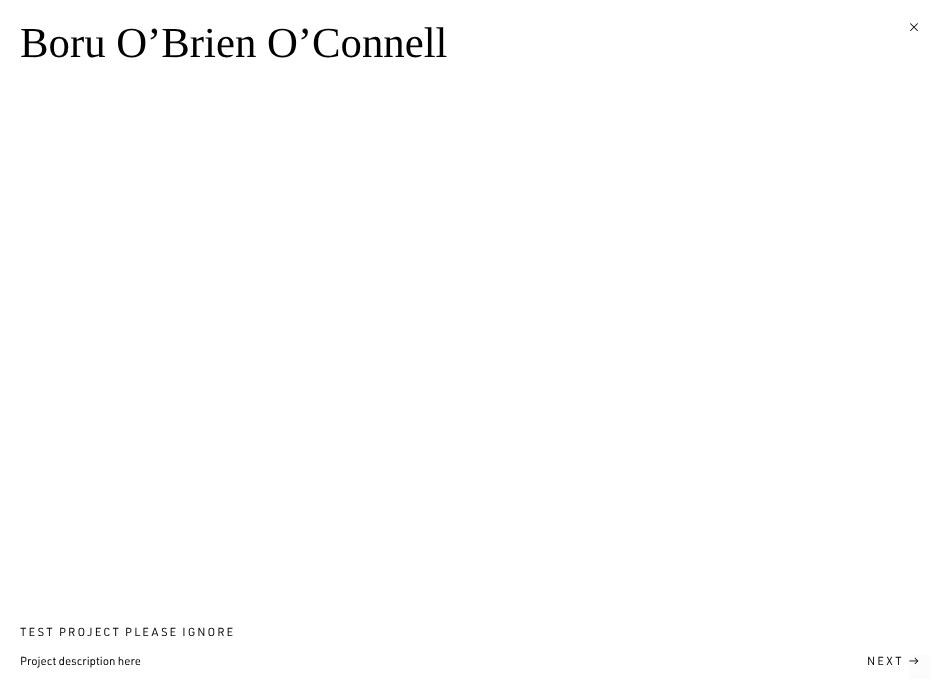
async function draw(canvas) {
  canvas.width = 942
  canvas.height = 689
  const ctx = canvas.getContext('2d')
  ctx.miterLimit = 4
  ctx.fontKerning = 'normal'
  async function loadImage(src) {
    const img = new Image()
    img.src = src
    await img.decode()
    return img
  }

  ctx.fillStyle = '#fff'
  ctx.fillRect(0, 0, 942, 689)
  ctx.fillStyle = '#fcfcfc'
  ctx.fillRect(908, 655, 24, 24)
  ctx.font = '42.75px Liberation Serif'
  ctx.fillStyle = '#000'
  ctx.fillText('Boru O’Brien O’Connell', 20, 57)
  ctx.drawImage(await loadImage('image0.png'), 910, 23, 8, 9)
  ctx.letterSpacing = '2px'
  ctx.font = '11.4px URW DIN'
  ctx.fillText('TEST PROJECT PLEASE IGNORE', 20, 636)
  ctx.letterSpacing = '0px'
  ctx.fillText('Project description here', 20, 665)
  ctx.letterSpacing = '2px'
  ctx.fillText('NEXT', 867, 665)
  ctx.drawImage(await loadImage('image1.png'), 909, 657, 10, 8)
}

draw(document.querySelector('canvas'))
